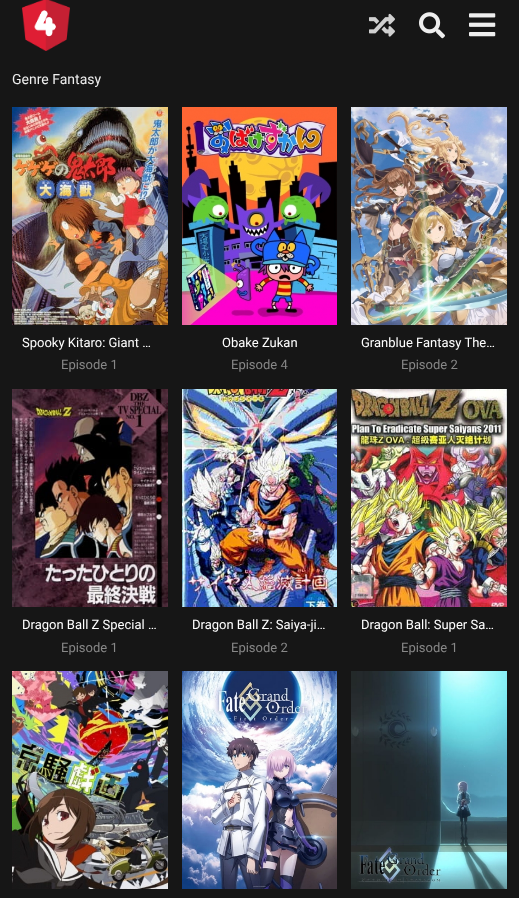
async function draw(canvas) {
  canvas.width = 519
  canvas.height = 898
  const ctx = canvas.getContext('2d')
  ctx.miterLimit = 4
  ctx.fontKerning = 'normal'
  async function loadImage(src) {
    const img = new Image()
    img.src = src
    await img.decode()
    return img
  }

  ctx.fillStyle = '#161616'
  ctx.fillRect(0, 0, 519, 898)
  ctx.drawImage(await loadImage('image0.png'), 22, 0, 48, 51)
  ctx.drawImage(await loadImage('image1.png'), 369, 13, 26, 24)
  ctx.drawImage(await loadImage('image2.png'), 419, 12, 26, 27)
  ctx.drawImage(await loadImage('image3.png'), 469, 13, 27, 24)
  ctx.font = '14px Roboto'
  ctx.fillStyle = '#eee'
  ctx.fillText('Genre Fantasy', 12, 84)
  ctx.drawImage(await loadImage('image4.png'), 12, 107, 156, 218)
  ctx.font = '13px Roboto'
  ctx.fillStyle = '#fff'
  ctx.fillText('Spooky Kitaro: Giant …', 22, 347)
  ctx.fillStyle = '#888'
  ctx.fillText('Episode 1', 61, 369)
  ctx.drawImage(await loadImage('image5.png'), 182, 107, 155, 218)
  ctx.fillStyle = '#fff'
  ctx.fillText('Obake Zukan', 222, 347)
  ctx.fillStyle = '#888'
  ctx.fillText('Episode 4', 231, 369)
  ctx.drawImage(await loadImage('image6.png'), 351, 107, 156, 218)
  ctx.fillStyle = '#fff'
  ctx.fillText('Granblue Fantasy The…', 361, 347)
  ctx.fillStyle = '#888'
  ctx.fillText('Episode 2', 401, 369)
  ctx.drawImage(await loadImage('image7.png'), 12, 389, 156, 218)
  ctx.fillStyle = '#fff'
  ctx.fillText('Dragon Ball Z Special …', 22, 629)
  ctx.fillStyle = '#888'
  ctx.fillText('Episode 1', 61, 652)
  ctx.drawImage(await loadImage('image8.png'), 182, 389, 155, 218)
  ctx.fillStyle = '#fff'
  ctx.fillText('Dragon Ball Z: Saiya-ji…', 192, 629)
  ctx.fillStyle = '#888'
  ctx.fillText('Episode 2', 231, 652)
  ctx.drawImage(await loadImage('image9.png'), 351, 389, 156, 218)
  ctx.fillStyle = '#fff'
  ctx.fillText('Dragon Ball: Super Sa…', 361, 629)
  ctx.fillStyle = '#888'
  ctx.fillText('Episode 1', 401, 652)
  ctx.drawImage(await loadImage('image10.png'), 12, 671, 156, 218)
  ctx.drawImage(await loadImage('image11.png'), 182, 671, 155, 218)
  ctx.drawImage(await loadImage('image12.png'), 351, 671, 156, 218)
}

draw(document.querySelector('canvas'))
